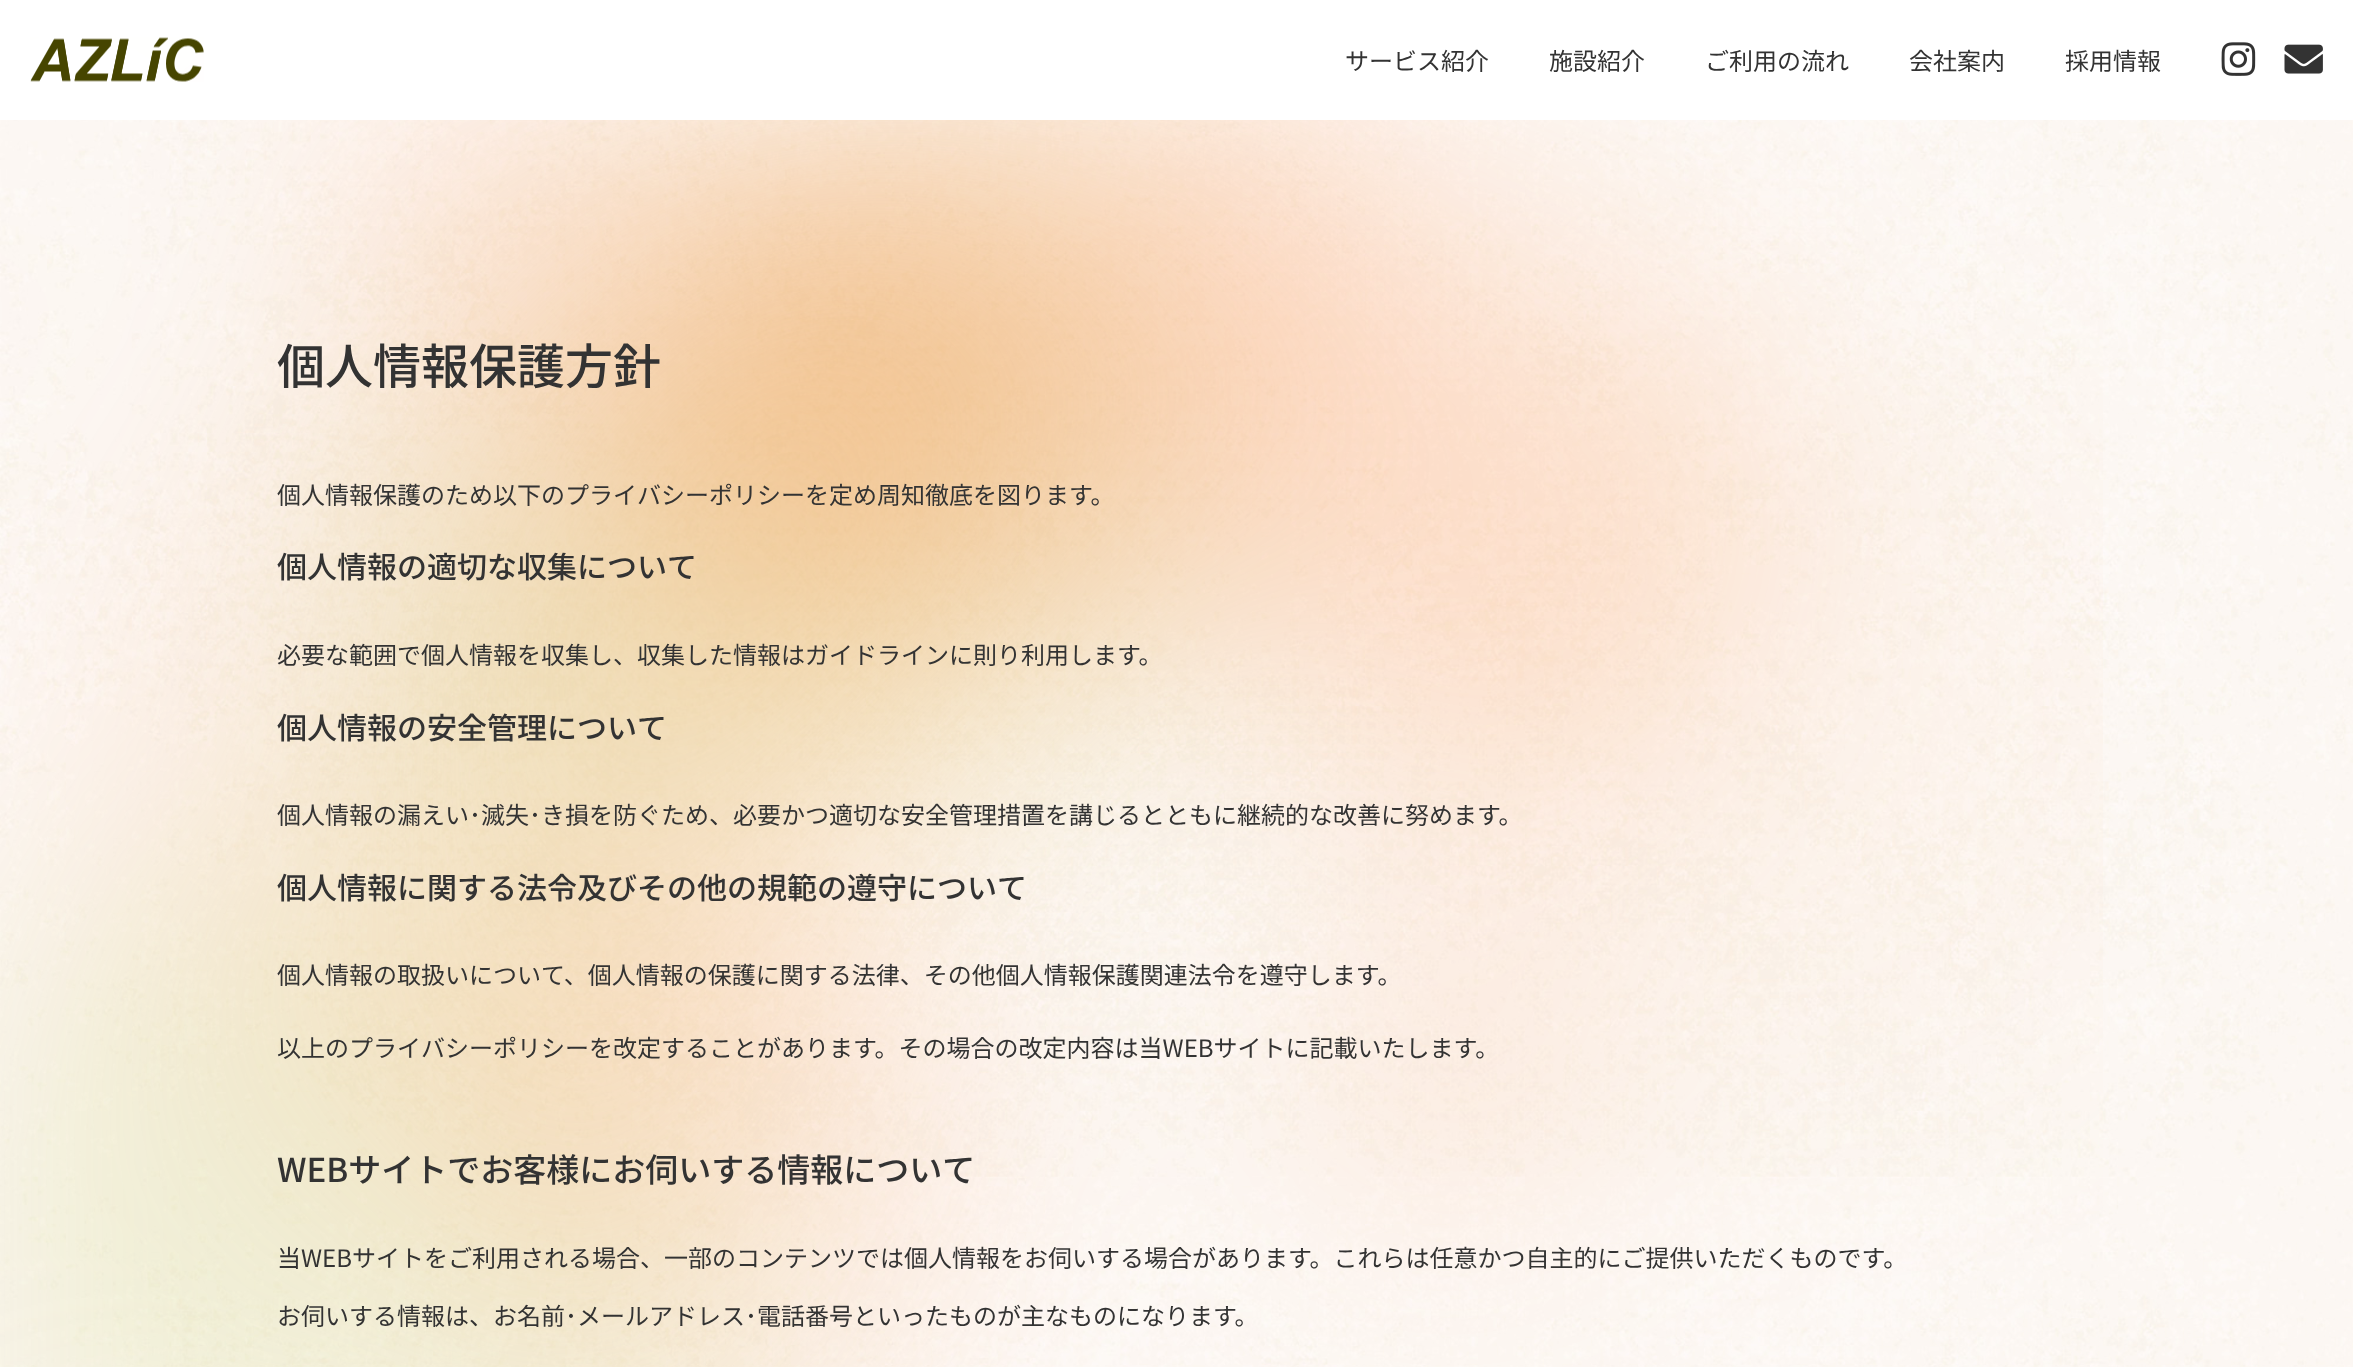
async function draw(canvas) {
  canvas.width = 2353
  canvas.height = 1367
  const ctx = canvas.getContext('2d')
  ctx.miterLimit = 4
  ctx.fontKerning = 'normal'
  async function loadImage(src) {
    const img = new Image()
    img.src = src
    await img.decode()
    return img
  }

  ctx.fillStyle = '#fff'
  ctx.fillRect(0, 0, 2353, 1367)
  ctx.drawImage(await loadImage('image0.png'), 0, 120, 2353, 1247)
  ctx.drawImage(await loadImage('image1.png'), 30, 37, 174, 45)
  ctx.font = '24px Noto Sans JP'
  ctx.fillStyle = '#333'
  ctx.fillText('サービス紹介', 1345, 70)
  ctx.fillText('施設紹介', 1549, 70)
  ctx.fillText('ご利用の流れ', 1705, 70)
  ctx.fillText('会社案内', 1909, 70)
  ctx.fillText('採用情報', 2065, 70)
  ctx.drawImage(await loadImage('image2.png'), 2221, 42, 35, 34)
  ctx.drawImage(await loadImage('image3.png'), 2284, 44, 39, 30)
  ctx.drawImage(await loadImage('image4.png'), 0, 120, 2103, 1247)
  ctx.font = '500 48px Noto Sans JP'
  ctx.fillText('個人情報保護方針', 277, 384)
  ctx.font = '24px Noto Sans JP'
  ctx.fillText('個人情報保護のため以下のプライバシーポリシーを定め周知徹底を図ります。', 277, 504)
  ctx.font = '500 30px Noto Sans JP'
  ctx.fillText('個人情報の適切な収集について', 277, 578)
  ctx.font = '24px Noto Sans JP'
  ctx.fillText('必要な範囲で個人情報を収集し、収集した情報はガイドラインに則り利用します。', 277, 664)
  ctx.font = '500 30px Noto Sans JP'
  ctx.fillText('個人情報の安全管理について', 277, 739)
  ctx.font = '24px Noto Sans JP'
  ctx.fillText('個人情報の漏えい･滅失･き損を防ぐため、必要かつ適切な安全管理措置を講じるとともに継続的な改善に努めます。', 277, 824)
  ctx.font = '500 30px Noto Sans JP'
  ctx.fillText('個人情報に関する法令及びその他の規範の遵守について', 277, 899)
  ctx.font = '24px Noto Sans JP'
  ctx.fillText('個人情報の取扱いについて、個人情報の保護に関する法律、その他個人情報保護関連法令を遵守します。', 277, 984)
  ctx.fillText('以上のプライバシーポリシーを改定することがあります。その場合の改定内容は当WEBサイトに記載いたします。', 277, 1057)
  ctx.font = '500 33px Noto Sans JP'
  ctx.fillText('WEBサイトでお客様にお伺いする情報について', 277, 1182)
  ctx.font = '24px Noto Sans JP'
  ctx.fillText('当WEBサイトをご利用される場合、一部のコンテンツでは個人情報をお伺いする場合があります。これらは任意かつ自主的にご提供いただくものです。', 277, 1267)
  ctx.fillText('お伺いする情報は、お名前･メールアドレス･電話番号といったものが主なものになります。', 277, 1325)
}

draw(document.querySelector('canvas'))
